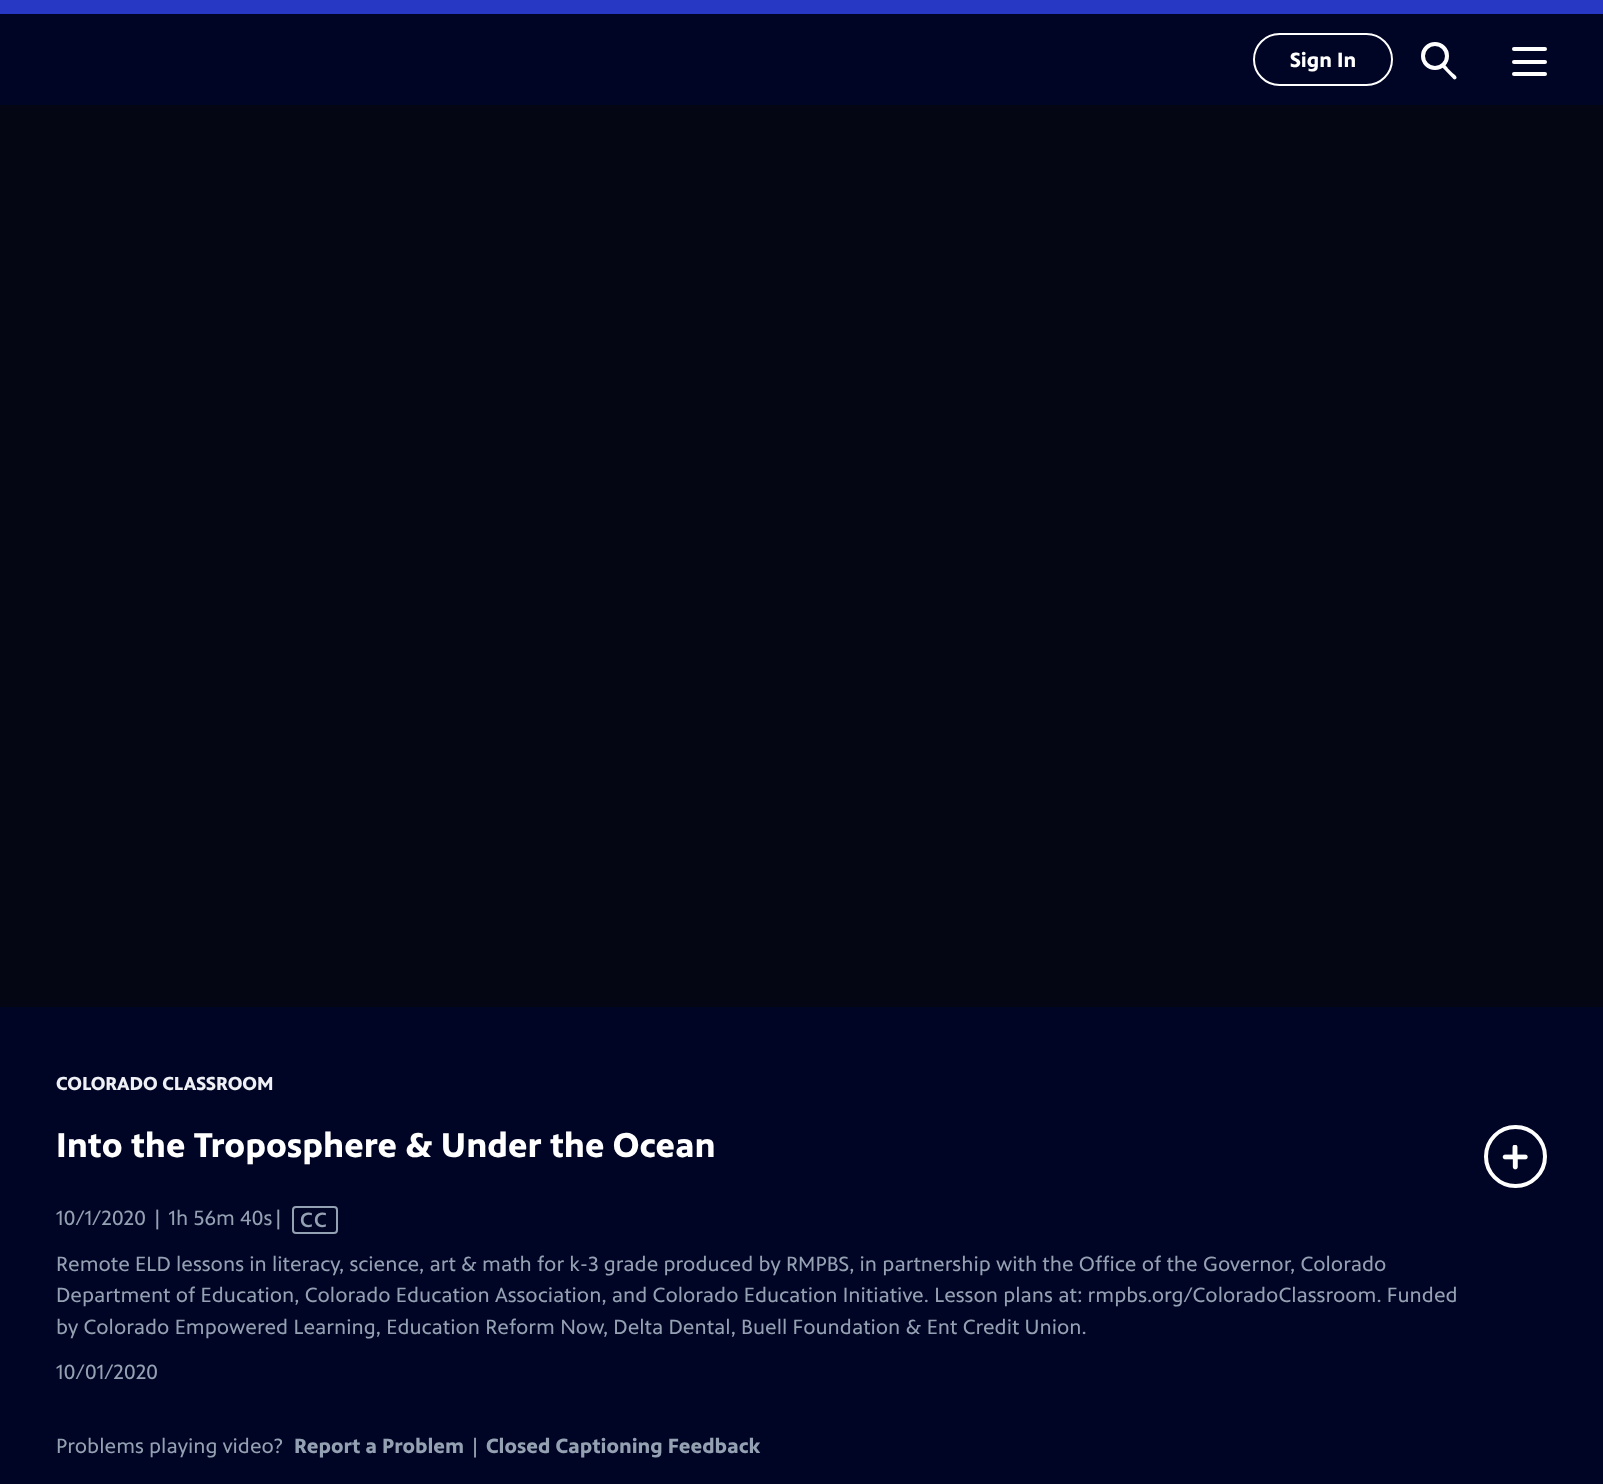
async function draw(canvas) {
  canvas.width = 1603
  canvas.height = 1484
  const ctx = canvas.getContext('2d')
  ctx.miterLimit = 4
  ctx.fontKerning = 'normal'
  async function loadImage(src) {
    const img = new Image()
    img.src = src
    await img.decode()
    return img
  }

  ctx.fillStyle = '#000525'
  ctx.fillRect(0, 0, 1603, 1484)
  ctx.fillStyle = '#2638c4'
  ctx.fillRect(0, 0, 1603, 14)
  ctx.beginPath()
  ctx.roundRect(1254, 34, 138, 51, 25.5)
  ctx.strokeStyle = '#fff'
  ctx.lineWidth = 2
  ctx.stroke()
  ctx.font = 'bold 21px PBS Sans'
  ctx.fillStyle = '#fff'
  ctx.fillText('Sign In', 1290, 67)
  ctx.beginPath()
  ctx.arc(1435, 56, 12, 0, 2 * Math.PI)
  ctx.lineWidth = 4
  ctx.stroke()
  ctx.beginPath()
  ctx.moveTo(1453.5, 79)
  ctx.lineTo(1441.5, 66.5)
  ctx.lineTo(1441.5, 65)
  ctx.bezierCurveTo(1443.5, 62, 1447.5, 67.5, 1448, 68.5)
  ctx.lineTo(1452, 72.5)
  ctx.bezierCurveTo(1453, 73.5, 1456, 75.5, 1456.5, 77)
  ctx.bezierCurveTo(1457, 79, 1454.5, 80, 1453.5, 79)
  ctx.closePath()
  ctx.fill()
  ctx.beginPath()
  ctx.roundRect(1512, 47, 35, 4, 2)
  ctx.fill()
  ctx.beginPath()
  ctx.roundRect(1512, 60, 35, 4, 2)
  ctx.fill()
  ctx.beginPath()
  ctx.roundRect(1512, 72, 35, 4, 2)
  ctx.fill()
  ctx.fillStyle = '#040613'
  ctx.fillRect(0, 105, 1603, 902)
  ctx.font = 'bold 19.25px PBS Sans'
  ctx.fillStyle = '#eef0f5'
  ctx.fillText('COLORADO CLASSROOM', 56, 1090)
  ctx.font = 'bold 35px PBS Sans'
  ctx.fillStyle = '#fff'
  ctx.fillText('Into the Troposphere & Under the Ocean', 56, 1157)
  ctx.beginPath()
  ctx.arc(1515.5, 1156.5, 29.5, 0, 2 * Math.PI)
  ctx.stroke()
  ctx.drawImage(await loadImage('image0.png'), 1502, 1145, 26, 25)
  ctx.font = '21px PBS Sans'
  ctx.fillStyle = '#94a1b2'
  ctx.fillText('10/1/2020 | 1h 56m 40s|', 56, 1225)
  ctx.beginPath()
  ctx.roundRect(293, 1207, 44, 26, 3)
  ctx.strokeStyle = '#94a1b2'
  ctx.lineWidth = 2
  ctx.stroke()
  ctx.letterSpacing = '2px'
  ctx.font = '500 21px PBS Sans'
  ctx.fillText('CC', 300, 1227)
  ctx.letterSpacing = '0px'
  ctx.font = '21px PBS Sans'
  ctx.fillText('Remote ELD lessons in literacy, science, art & math for k-3 grade produced by RMPBS, in partnership with the Office of the Governor, Colorado', 56, 1271)
  ctx.fillText('Department of Education, Colorado Education Association, and Colorado Education Initiative. Lesson plans at: rmpbs.org/ColoradoClassroom. Funded', 56, 1302)
  ctx.fillText('by Colorado Empowered Learning, Education Reform Now, Delta Dental, Buell Foundation & Ent Credit Union.', 56, 1334)
  ctx.fillText('10/01/2020', 56, 1379)
  ctx.fillText('Problems playing video?', 56, 1453)
  ctx.font = 'bold 21px PBS Sans'
  ctx.fillText('Report a Problem', 294, 1453)
  ctx.font = '21px PBS Sans'
  ctx.fillText('|', 469, 1453)
  ctx.font = 'bold 21px PBS Sans'
  ctx.fillText('Closed Captioning Feedback', 486, 1453)
}

draw(document.querySelector('canvas'))
